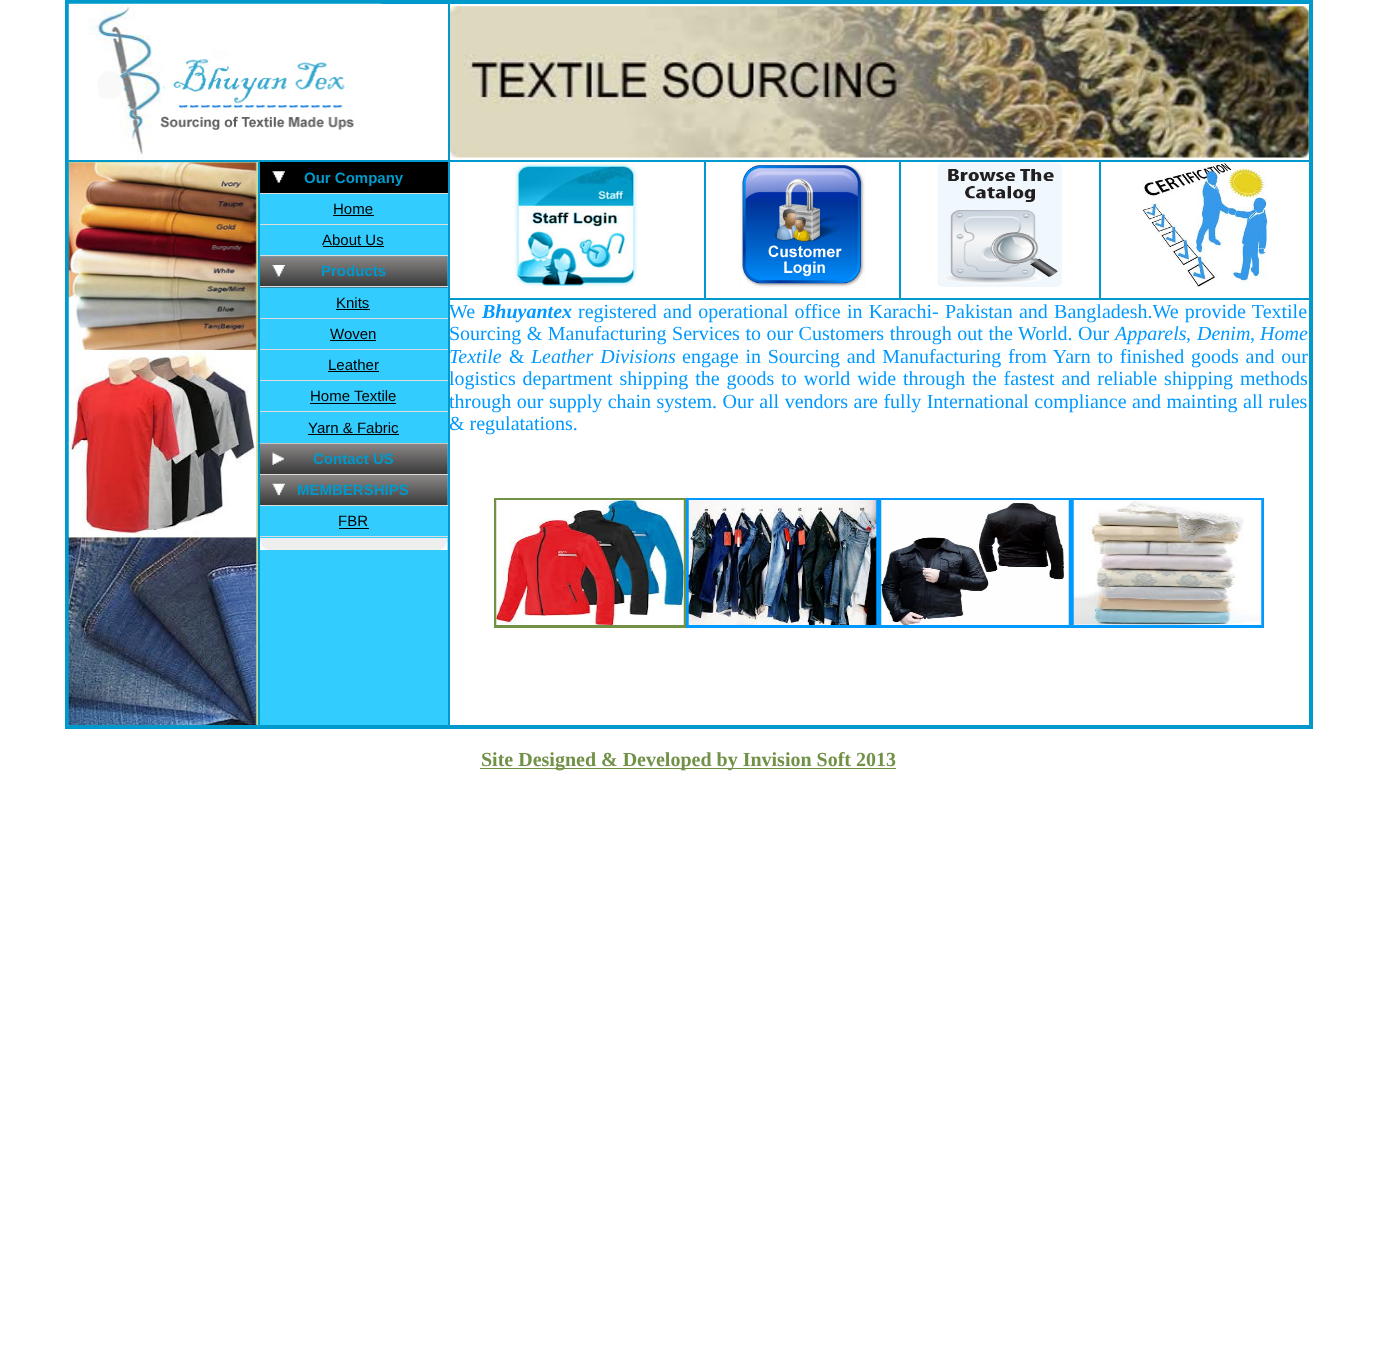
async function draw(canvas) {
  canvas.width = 1376
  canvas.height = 1366
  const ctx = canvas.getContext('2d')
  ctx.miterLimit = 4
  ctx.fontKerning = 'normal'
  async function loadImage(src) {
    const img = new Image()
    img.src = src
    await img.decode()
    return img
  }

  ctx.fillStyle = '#fff'
  ctx.fillRect(0, 0, 1376, 1366)
  ctx.strokeStyle = '#09c'
  ctx.lineWidth = 3
  ctx.strokeRect(66.5, 1.5, 1245, 726)
  ctx.lineWidth = 1
  ctx.strokeRect(68.5, 3.5, 380, 157)
  ctx.drawImage(await loadImage('image0.png'), 68, 3, 314, 157)
  ctx.strokeRect(449.5, 3.5, 860, 157)
  ctx.drawImage(await loadImage('image1.png'), 450, 6, 859, 152)
  ctx.fillStyle = '#c3dba1'
  ctx.beginPath()
  ctx.rect(68.5, 161.5, 190, 564)
  ctx.fill()
  ctx.stroke()
  ctx.drawImage(await loadImage('image2.png'), 68, 162, 189, 188)
  ctx.drawImage(await loadImage('image3.png'), 68, 350, 189, 188)
  ctx.drawImage(await loadImage('image4.png'), 68, 537, 189, 188)
  ctx.fillStyle = '#3cf'
  ctx.fillRect(260, 194, 188, 531)
  ctx.strokeRect(259.5, 161.5, 189, 564)
  ctx.drawImage(await loadImage('image5.png'), 260, 538, 188, 12)
  ctx.fillStyle = '#000'
  ctx.fillRect(260, 162, 188, 31)
  ctx.drawImage(await loadImage('image6.png'), 272, 171, 13, 12)
  ctx.fillStyle = '#ddd'
  ctx.fillRect(260, 193, 188, 1)
  ctx.font = 'bold 15px Liberation Sans'
  ctx.fillStyle = '#09c'
  ctx.fillText('Our Company', 304, 183)
  ctx.fillStyle = '#ddd'
  ctx.fillRect(260, 224, 188, 1)
  ctx.font = '15px Liberation Sans'
  ctx.fillStyle = '#000'
  ctx.fillText('Home', 333, 214)
  ctx.fillRect(333, 215, 41, 1)
  ctx.fillStyle = '#ddd'
  ctx.fillRect(260, 255, 188, 1)
  ctx.fillStyle = '#000'
  ctx.fillText('About Us', 322, 245)
  ctx.fillRect(323, 246, 61, 1)
  ctx.drawImage(await loadImage('image7.png'), 260, 256, 188, 32)
  ctx.drawImage(await loadImage('image8.png'), 272, 265, 13, 12)
  ctx.fillStyle = '#ddd'
  ctx.fillRect(260, 286, 188, 1)
  ctx.font = 'bold 15px Liberation Sans'
  ctx.fillStyle = '#09c'
  ctx.fillText('Products', 321, 276)
  ctx.fillStyle = '#ddd'
  ctx.fillRect(260, 318, 188, 1)
  ctx.font = '15px Liberation Sans'
  ctx.fillStyle = '#000'
  ctx.fillText('Knits', 336, 308)
  ctx.fillRect(336, 309, 34, 1)
  ctx.fillStyle = '#ddd'
  ctx.fillRect(260, 349, 188, 1)
  ctx.fillStyle = '#000'
  ctx.fillText('Woven', 330, 339)
  ctx.fillRect(330, 340, 46, 1)
  ctx.fillStyle = '#ddd'
  ctx.fillRect(260, 380, 188, 1)
  ctx.fillStyle = '#000'
  ctx.fillText('Leather', 328, 370)
  ctx.fillRect(328, 371, 51, 1)
  ctx.fillStyle = '#ddd'
  ctx.fillRect(260, 411, 188, 1)
  ctx.fillStyle = '#000'
  ctx.fillText('Home Textile', 310, 401)
  ctx.fillRect(310, 403, 86, 1)
  ctx.fillStyle = '#ddd'
  ctx.fillRect(260, 443, 188, 1)
  ctx.fillStyle = '#000'
  ctx.fillText('Yarn & Fabric', 308, 433)
  ctx.fillRect(308, 434, 91, 1)
  ctx.drawImage(await loadImage('image9.png'), 260, 443, 188, 31)
  ctx.drawImage(await loadImage('image10.png'), 272, 452, 12, 13)
  ctx.fillStyle = '#ddd'
  ctx.fillRect(260, 474, 188, 1)
  ctx.font = 'bold 15px Liberation Sans'
  ctx.fillStyle = '#09c'
  ctx.fillText('Contact US', 313, 464)
  ctx.drawImage(await loadImage('image11.png'), 260, 475, 188, 30)
  ctx.drawImage(await loadImage('image12.png'), 272, 483, 13, 13)
  ctx.fillStyle = '#ddd'
  ctx.fillRect(260, 505, 188, 1)
  ctx.fillStyle = '#09c'
  ctx.fillText('MEMBERSHIPS', 297, 495)
  ctx.fillStyle = '#ddd'
  ctx.fillRect(260, 536, 188, 1)
  ctx.font = '15px Liberation Sans'
  ctx.fillStyle = '#000'
  ctx.fillText('FBR', 338, 526)
  ctx.fillRect(339, 528, 30, 1)
  ctx.strokeRect(449.5, 161.5, 255, 137)
  ctx.drawImage(await loadImage('image13.png'), 514, 162, 124, 126)
  ctx.strokeRect(705.5, 161.5, 194, 137)
  ctx.drawImage(await loadImage('image14.png'), 740, 162, 125, 126)
  ctx.strokeRect(900.5, 161.5, 199, 137)
  ctx.drawImage(await loadImage('image15.png'), 937, 162, 125, 125)
  ctx.strokeRect(1100.5, 161.5, 209, 137)
  ctx.drawImage(await loadImage('image16.png'), 1142, 162, 126, 126)
  ctx.strokeRect(449.5, 299.5, 860, 426)
  ctx.font = '20px Liberation Serif'
  ctx.fillStyle = '#09f'
  ctx.fillText('We', 449, 318)
  ctx.font = 'italic bold 20px Liberation Serif'
  ctx.fillText('Bhuyantex', 482, 318)
  ctx.wordSpacing = '1.25px'
  ctx.font = '20px Liberation Serif'
  ctx.fillText('registered and operational office in Karachi- Pakistan and Bangladesh.We provide Textile', 578, 318)
  ctx.wordSpacing = '0.5px'
  ctx.fillText('Sourcing & Manufacturing Services to our Customers through out the World. Our', 449, 340)
  ctx.wordSpacing = '0px'
  ctx.font = 'italic 20px Liberation Serif'
  ctx.fillText('Apparels', 1115, 340)
  ctx.font = '20px Liberation Serif'
  ctx.fillText(',', 1186, 340)
  ctx.font = 'italic 20px Liberation Serif'
  ctx.fillText('Denim', 1197, 340)
  ctx.font = '20px Liberation Serif'
  ctx.fillText(',', 1250, 340)
  ctx.font = 'italic 20px Liberation Serif'
  ctx.fillText('Home', 1260, 340)
  ctx.fillText('Textile', 449, 363)
  ctx.font = '20px Liberation Serif'
  ctx.fillText('&', 509, 363)
  ctx.wordSpacing = '2px'
  ctx.font = 'italic 20px Liberation Serif'
  ctx.fillText('Leather Divisions', 531, 363)
  ctx.wordSpacing = '1.75px'
  ctx.font = '20px Liberation Serif'
  ctx.fillText('engage in Sourcing and Manufacturing from Yarn to finished goods and our', 682, 363)
  ctx.wordSpacing = '1.9px'
  ctx.fillText('logistics department shipping the goods to world wide through the fastest and reliable shipping methods', 449, 385)
  ctx.wordSpacing = '0.5px'
  ctx.fillText('through our supply chain system. Our all vendors are fully International compliance and mainting all rules', 449, 408)
  ctx.wordSpacing = '0px'
  ctx.fillText('& regulatations.', 449, 430)
  ctx.strokeStyle = '#719147'
  ctx.lineWidth = 3
  ctx.strokeRect(495.5, 499.5, 189, 127)
  ctx.strokeStyle = '#09f'
  ctx.strokeRect(687.5, 499.5, 190, 127)
  ctx.strokeRect(880.5, 499.5, 189, 127)
  ctx.strokeRect(1072.5, 499.5, 190, 127)
  ctx.drawImage(await loadImage('image17.png'), 496, 500, 188, 125)
  ctx.drawImage(await loadImage('image18.png'), 688, 500, 189, 125)
  ctx.drawImage(await loadImage('image19.png'), 881, 500, 188, 125)
  ctx.drawImage(await loadImage('image20.png'), 1073, 500, 189, 125)
  ctx.fillStyle = '#719147'
  ctx.fillRect(480, 768, 416, 1)
  ctx.font = 'bold 20px Liberation Serif'
  ctx.fillText('Site Designed & Developed by Invision Soft 2013', 481, 766)
}

draw(document.querySelector('canvas'))
